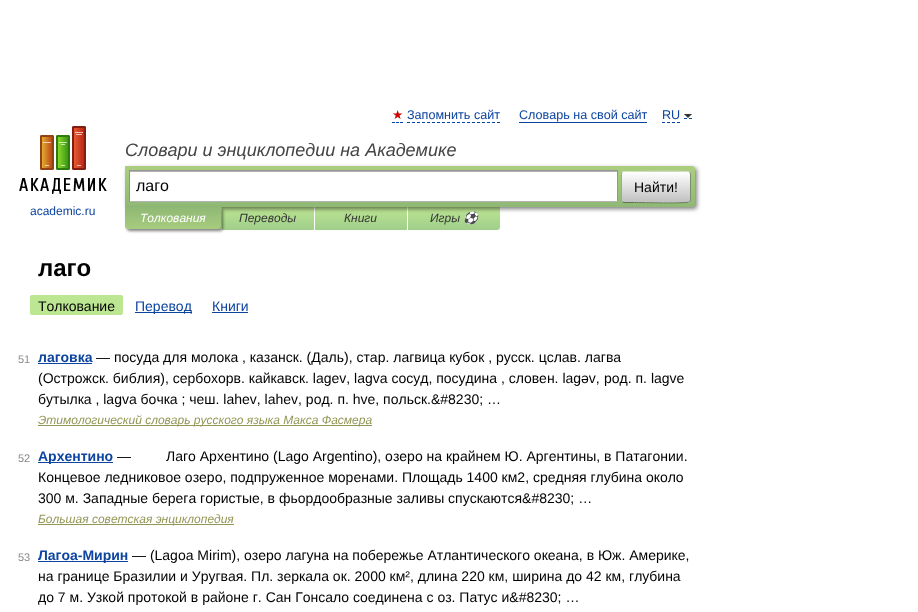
async function draw(canvas) {
  canvas.width = 918
  canvas.height = 612
  const ctx = canvas.getContext('2d')
  ctx.miterLimit = 4
  ctx.fontKerning = 'none'
  async function loadImage(src) {
    const img = new Image()
    img.src = src
    await img.decode()
    return img
  }
  let gradient

  ctx.fillStyle = '#fff'
  ctx.fillRect(0, 0, 918, 612)
  ctx.font = '12.6px DejaVu Sans'
  ctx.fillStyle = '#c00'
  ctx.fillText('★', 392, 119)
  ctx.beginPath()
  ctx.moveTo(392, 122.5)
  ctx.lineTo(395, 122.5)
  ctx.moveTo(396, 122.5)
  ctx.lineTo(399, 122.5)
  ctx.moveTo(400, 122.5)
  ctx.lineTo(403, 122.5)
  ctx.strokeStyle = '#04a'
  ctx.stroke()
  ctx.font = '12.6px Liberation Sans'
  ctx.fillStyle = '#0d44a0'
  ctx.fillText('Запомнить сайт', 407, 119)
  ctx.beginPath()
  ctx.moveTo(407, 122.5)
  ctx.lineTo(500, 122.5)
  ctx.setLineDash([3, 2])
  ctx.stroke()
  ctx.fillText('Словарь на свой сайт', 519, 119)
  ctx.fillRect(519, 122, 128, 1)
  ctx.beginPath()
  ctx.moveTo(662, 122.5)
  ctx.lineTo(680, 122.5)
  ctx.stroke()
  ctx.beginPath()
  ctx.moveTo(684, 118.5)
  ctx.lineTo(687, 118.5)
  ctx.moveTo(689, 118.5)
  ctx.lineTo(692, 118.5)
  ctx.setLineDash([])
  ctx.stroke()
  ctx.fillText('RU', 662, 119)
  ctx.fillStyle = '#333'
  ctx.beginPath()
  ctx.moveTo(684, 114)
  ctx.lineTo(692, 114)
  ctx.lineTo(688, 118)
  ctx.closePath()
  ctx.fill()
  ctx.font = 'italic 18px Liberation Sans'
  ctx.fillStyle = '#454545'
  ctx.fillText('Словари и энциклопедии на Академике', 125, 156)
  gradient = ctx.createLinearGradient(268, 207, 268, 230)
  gradient.addColorStop(0, '#bde693')
  gradient.addColorStop(1, '#a0ce8a')
  ctx.fillStyle = gradient
  ctx.fillRect(222, 207, 92, 23)
  gradient = ctx.createLinearGradient(361, 207, 361, 230)
  gradient.addColorStop(0, '#bde693')
  gradient.addColorStop(1, '#a0ce8a')
  ctx.fillStyle = gradient
  ctx.fillRect(315, 207, 92, 23)
  gradient = ctx.createLinearGradient(454, 207, 454, 230)
  gradient.addColorStop(0, '#bde693')
  gradient.addColorStop(1, '#a0ce8a')
  ctx.fillStyle = gradient
  ctx.beginPath()
  ctx.roundRect(408, 207, 92, 23, [0, 0, 3, 0])
  ctx.fill()
  ctx.fillStyle = '#00000080'
  ctx.filter = 'blur(2px)'
  ctx.beginPath()
  ctx.roundRect(127, 168, 570, 41, 3)
  ctx.fill()
  ctx.filter = 'none'
  gradient = ctx.createLinearGradient(410, 166, 410, 207)
  gradient.addColorStop(0, '#abcf7e')
  gradient.addColorStop(1, '#8eb874')
  ctx.fillStyle = gradient
  ctx.beginPath()
  ctx.roundRect(125, 166, 570, 41, [0, 3, 3, 0])
  ctx.fill()
  ctx.fillStyle = '#fff'
  ctx.fillRect(130, 172, 487, 29)
  ctx.fillStyle = '#b3b3b3'
  ctx.fillRect(130, 171, 487, 1)
  ctx.fillStyle = '#949494'
  ctx.fillRect(129, 170, 489, 1)
  ctx.fillRect(617, 170, 1, 32)
  ctx.fillStyle = '#b4b4b4'
  ctx.fillRect(129, 201, 489, 1)
  ctx.fillStyle = '#949494'
  ctx.fillRect(129, 170, 1, 32)
  ctx.font = '16px Liberation Sans'
  ctx.fillStyle = '#000'
  ctx.fillText('лаго', 136, 191)
  ctx.save()
  ctx.beginPath()
  ctx.roundRect(621, 171, 70, 32, 3)
  ctx.clip()
  gradient = ctx.createLinearGradient(656, 142, 656, 172)
  gradient.addColorStop(0, '#fff')
  gradient.addColorStop(1, '#c1c1c1')
  ctx.fillStyle = gradient
  ctx.fillRect(621, 171, 70, 1)
  gradient = ctx.createLinearGradient(656, 172, 656, 202)
  gradient.addColorStop(0, '#fff')
  gradient.addColorStop(1, '#c1c1c1')
  ctx.fillStyle = gradient
  ctx.fillRect(621, 172, 70, 30)
  gradient = ctx.createLinearGradient(656, 202, 656, 232)
  gradient.addColorStop(0, '#fff')
  gradient.addColorStop(1, '#c1c1c1')
  ctx.fillStyle = gradient
  ctx.fillRect(621, 202, 70, 1)
  ctx.restore()
  ctx.beginPath()
  ctx.moveTo(622, 172)
  ctx.lineTo(624, 171.5)
  ctx.lineTo(634.5, 171.5)
  ctx.bezierCurveTo(641, 171.5, 687.5, 170.5, 689.5, 172)
  ctx.lineTo(690, 172)
  ctx.strokeStyle = '#d1e4bc'
  ctx.stroke()
  ctx.beginPath()
  ctx.moveTo(690, 172)
  ctx.bezierCurveTo(690, 172.5, 690.5, 173.5, 690.5, 174)
  ctx.lineTo(690.5, 200)
  ctx.bezierCurveTo(690.5, 200.5, 690, 201.5, 690, 202)
  ctx.strokeStyle = '#7a8e69'
  ctx.stroke()
  ctx.beginPath()
  ctx.moveTo(690, 202)
  ctx.lineTo(689.5, 202)
  ctx.bezierCurveTo(687.5, 203.5, 641, 202.5, 634.5, 202.5)
  ctx.lineTo(624, 202.5)
  ctx.lineTo(622, 202)
  ctx.strokeStyle = '#5d7250'
  ctx.stroke()
  ctx.beginPath()
  ctx.moveTo(622, 202)
  ctx.bezierCurveTo(622, 201.5, 621.5, 200.5, 621.5, 200)
  ctx.lineTo(621.5, 174)
  ctx.bezierCurveTo(621.5, 173.5, 622, 172.5, 622, 172)
  ctx.strokeStyle = '#9aae89'
  ctx.stroke()
  ctx.font = '14px Liberation Sans'
  ctx.fillText('Найти!', 634, 192)
  ctx.drawImage(await loadImage('image0.png'), 19, 126, 88, 68)
  ctx.font = '12px Liberation Sans'
  ctx.fillStyle = '#0d44a0'
  ctx.fillText('academic.ru', 30, 215)
  ctx.fillStyle = '#00000080'
  ctx.filter = 'blur(1.5px)'
  ctx.beginPath()
  ctx.roundRect(127, 209, 96, 22, 3)
  ctx.fill()
  ctx.filter = 'none'
  gradient = ctx.createLinearGradient(173, 207, 173, 229)
  gradient.addColorStop(0, '#8fb875')
  gradient.addColorStop(1, '#a7cc7d')
  ctx.fillStyle = gradient
  ctx.beginPath()
  ctx.roundRect(125, 207, 96, 22, [0, 0, 3, 3])
  ctx.fill()
  ctx.font = 'italic 12px Liberation Sans'
  ctx.fillStyle = '#fff'
  ctx.fillText('Толкования', 140, 222)
  ctx.fillStyle = '#353535'
  ctx.fillText('Переводы', 239, 222)
  ctx.fillText('Книги', 344, 222)
  ctx.fillText('Игры', 430, 222)
  ctx.font = 'italic 12px Noto Color Emoji'
  ctx.fillText('⚽', 463, 222)
  ctx.font = 'bold 24px Liberation Sans'
  ctx.fillStyle = '#000'
  ctx.fillText('лаго', 38, 276)
  ctx.fillStyle = '#bde693'
  ctx.beginPath()
  ctx.roundRect(30, 295, 93, 20, 2)
  ctx.fill()
  ctx.font = '14px Liberation Sans'
  ctx.fillStyle = '#000'
  ctx.fillText('Толкование', 38, 311)
  ctx.fillStyle = '#0d44a0'
  ctx.fillRect(135, 312, 57, 1)
  ctx.fillText('Перевод', 135, 311)
  ctx.fillText('Книги', 212, 311)
  ctx.fillRect(212, 312, 36, 1)
  ctx.font = '11px Liberation Sans'
  ctx.fillStyle = '#898989'
  ctx.fillText('51', 18, 363)
  ctx.font = 'bold 14px Liberation Sans'
  ctx.fillStyle = '#0d44a0'
  ctx.fillText('лаговка', 38, 362)
  ctx.fillRect(38, 363, 54, 1)
  ctx.font = '14px Liberation Sans'
  ctx.fillStyle = '#000'
  ctx.fillText('— посуда для молока , казанск. (Даль), стар. лагвица кубок , русск. цслав. лагва', 96, 362)
  ctx.fillText('(Острожск. библия), сербохорв. кайкавск. lagev, lagva сосуд, посудина , словен. lagǝv,', 38, 383)
  ctx.fillText('род. п. lagvе', 604, 383)
  ctx.fillText('бутылка , lagvа бочка ; чеш. lahev, lahev, род. п. hve, польск.&#8230; …', 38, 404)
  ctx.fillStyle = '#939756'
  ctx.fillRect(38, 425, 334, 1)
  ctx.font = 'italic 12px Liberation Sans'
  ctx.fillText('Этимологический словарь русского языка Макса Фасмера', 38, 424)
  ctx.font = '11px Liberation Sans'
  ctx.fillStyle = '#898989'
  ctx.fillText('52', 18, 462)
  ctx.fillStyle = '#0d44a0'
  ctx.fillRect(38, 462, 75, 1)
  ctx.font = 'bold 14px Liberation Sans'
  ctx.fillText('Архентино', 38, 461)
  ctx.font = '14px Liberation Sans'
  ctx.fillStyle = '#000'
  ctx.fillText('—         Лаго Архентино (Lago Argentino), озеро на крайнем Ю. Аргентины, в Патагонии.', 117, 461)
  ctx.fillText('Концевое ледниковое озеро, подпруженное моренами. Площадь 1400 км2, средняя глубина около', 38, 482)
  ctx.fillText('300 м. Западные берега гористые, в фьордообразные заливы спускаются&#8230; …', 38, 503)
  ctx.fillStyle = '#939756'
  ctx.fillRect(38, 524, 196, 1)
  ctx.font = 'italic 12px Liberation Sans'
  ctx.fillText('Большая советская энциклопедия', 38, 523)
  ctx.font = '11px Liberation Sans'
  ctx.fillStyle = '#898989'
  ctx.fillText('53', 18, 561)
  ctx.fillStyle = '#0d44a0'
  ctx.fillRect(38, 561, 90, 1)
  ctx.font = 'bold 14px Liberation Sans'
  ctx.fillText('Лагоа-Мирин', 38, 560)
  ctx.font = '14px Liberation Sans'
  ctx.fillStyle = '#000'
  ctx.fillText('— (Lagoa Mirim), озеро лагуна на побережье Атлантического океана, в Юж. Америке,', 132, 560)
  ctx.fillText('на границе Бразилии и Уругвая. Пл. зеркала ок. 2000 км², длина 220 км, ширина до 42 км, глубина', 38, 581)
  ctx.fillText('до 7 м. Узкой протокой в районе г. Сан Гонсало', 38, 602)
  ctx.fillText('соединена с оз. Патус и&#8230; …', 353, 602)
}

draw(document.querySelector('canvas'))
